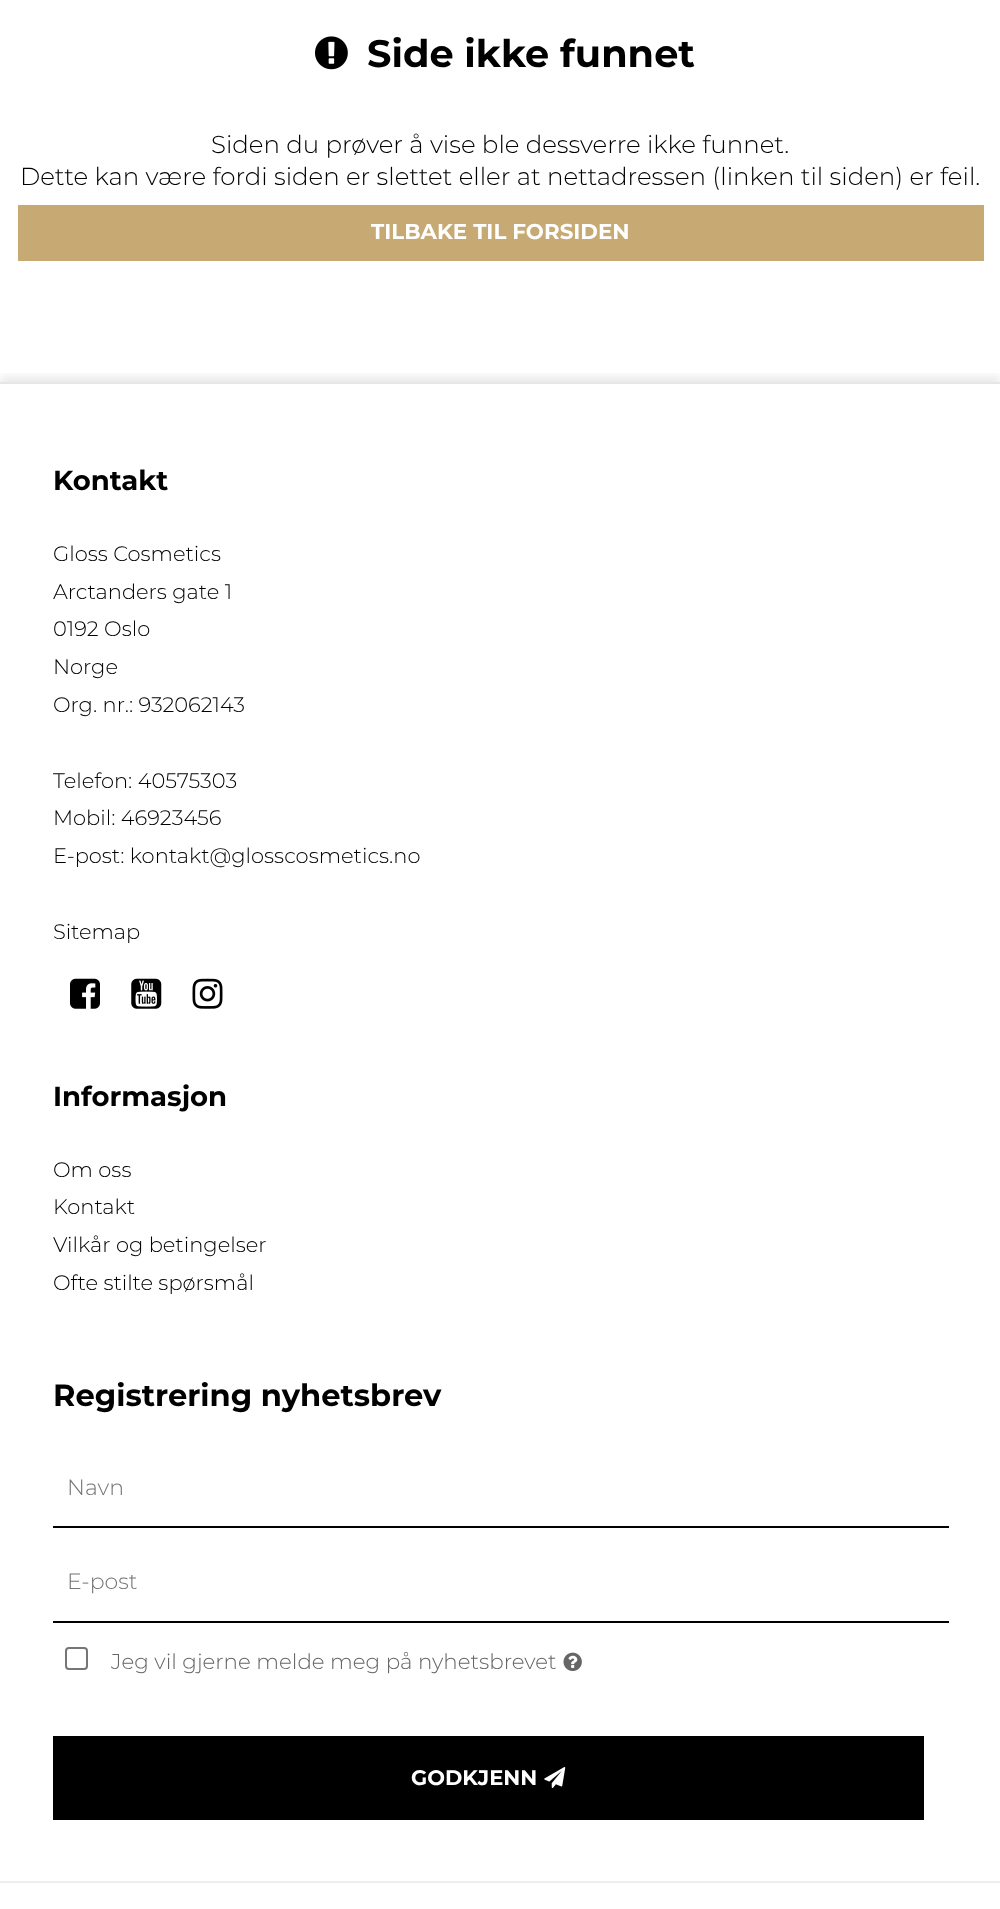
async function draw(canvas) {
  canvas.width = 1000
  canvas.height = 1909
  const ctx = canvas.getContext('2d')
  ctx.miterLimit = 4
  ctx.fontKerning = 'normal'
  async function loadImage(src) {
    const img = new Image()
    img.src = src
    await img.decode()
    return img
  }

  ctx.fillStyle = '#fff'
  ctx.fillRect(0, 0, 1000, 1909)
  ctx.drawImage(await loadImage('image0.png'), 315, 36, 33, 34)
  ctx.font = 'bold 38.25px Montserrat'
  ctx.fillStyle = '#000'
  ctx.fillText('Side ikke funnet', 367, 67)
  ctx.font = '300 24.5px Montserrat'
  ctx.fillText('Siden du prøver å vise ble dessverre ikke funnet.', 211, 153)
  ctx.fillText('Dette kan være fordi siden er slettet eller at nettadressen (linken til siden) er feil.', 20, 185)
  ctx.fillStyle = '#c7a973'
  ctx.fillRect(18, 205, 966, 56)
  ctx.font = 'bold 21.4px Montserrat'
  ctx.fillStyle = '#fff'
  ctx.fillText('TILBAKE TIL FORSIDEN', 371, 239)
  ctx.save()
  ctx.beginPath()
  ctx.rect(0, 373, 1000, 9)
  ctx.clip()
  ctx.fillStyle = '#00000014'
  ctx.filter = 'blur(4.5px)'
  ctx.beginPath()
  ctx.rect(0, 376, 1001, 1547)
  ctx.fill()
  ctx.filter = 'none'
  ctx.restore()
  ctx.fillStyle = '#e6e6e6'
  ctx.fillRect(0, 382, 1000, 2)
  ctx.font = 'bold 27.5px Montserrat'
  ctx.fillStyle = '#000'
  ctx.fillText('Kontakt', 53, 490)
  ctx.font = '300 21px Montserrat'
  ctx.fillText('Gloss Cosmetics', 53, 561)
  ctx.fillText('Arctanders gate 1', 53, 599)
  ctx.fillText('0192 Oslo', 53, 636)
  ctx.fillText('Norge', 53, 674)
  ctx.fillText('Org. nr.: 932062143', 53, 712)
  ctx.fillText('Telefon: 40575303', 53, 788)
  ctx.fillText('Mobil: 46923456', 53, 825)
  ctx.fillText('E-post: kontakt@glosscosmetics.no', 53, 863)
  ctx.fillText('Sitemap', 53, 939)
  ctx.drawImage(await loadImage('image1.png'), 70, 978, 30, 31)
  ctx.drawImage(await loadImage('image2.png'), 131, 978, 31, 31)
  ctx.drawImage(await loadImage('image3.png'), 192, 978, 31, 31)
  ctx.font = 'bold 27.5px Montserrat'
  ctx.fillText('Informasjon', 53, 1106)
  ctx.font = '300 21px Montserrat'
  ctx.fillText('Om oss', 53, 1177)
  ctx.fillText('Kontakt', 53, 1214)
  ctx.fillText('Vilkår og betingelser', 53, 1252)
  ctx.fillText('Ofte stilte spørsmål', 53, 1290)
  ctx.font = 'bold 30.6px Montserrat'
  ctx.fillText('Registrering nyhetsbrev', 53, 1406)
  ctx.fillRect(53, 1526, 896, 2)
  ctx.font = '300 22px Montserrat'
  ctx.fillStyle = '#757575'
  ctx.fillText('Navn', 67, 1495)
  ctx.fillStyle = '#000'
  ctx.fillRect(53, 1621, 896, 2)
  ctx.fillStyle = '#757575'
  ctx.fillText('E-post', 67, 1589)
  ctx.beginPath()
  ctx.roundRect(66, 1648, 21, 21, 3)
  ctx.strokeStyle = '#767676'
  ctx.lineWidth = 2
  ctx.stroke()
  ctx.font = '300 21.4px Montserrat'
  ctx.fillStyle = '#656764'
  ctx.fillText('Jeg vil gjerne melde meg på nyhetsbrevet', 111, 1669)
  ctx.drawImage(await loadImage('image4.png'), 563, 1652, 19, 19)
  ctx.fillStyle = '#000'
  ctx.fillRect(53, 1736, 871, 84)
  ctx.font = 'bold 21px Montserrat'
  ctx.fillStyle = '#fff'
  ctx.fillText('GODKJENN', 411, 1785)
  ctx.drawImage(await loadImage('image5.png'), 544, 1767, 22, 21)
  ctx.fillStyle = '#eee'
  ctx.fillRect(0, 1881, 1000, 2)
}

draw(document.querySelector('canvas'))
